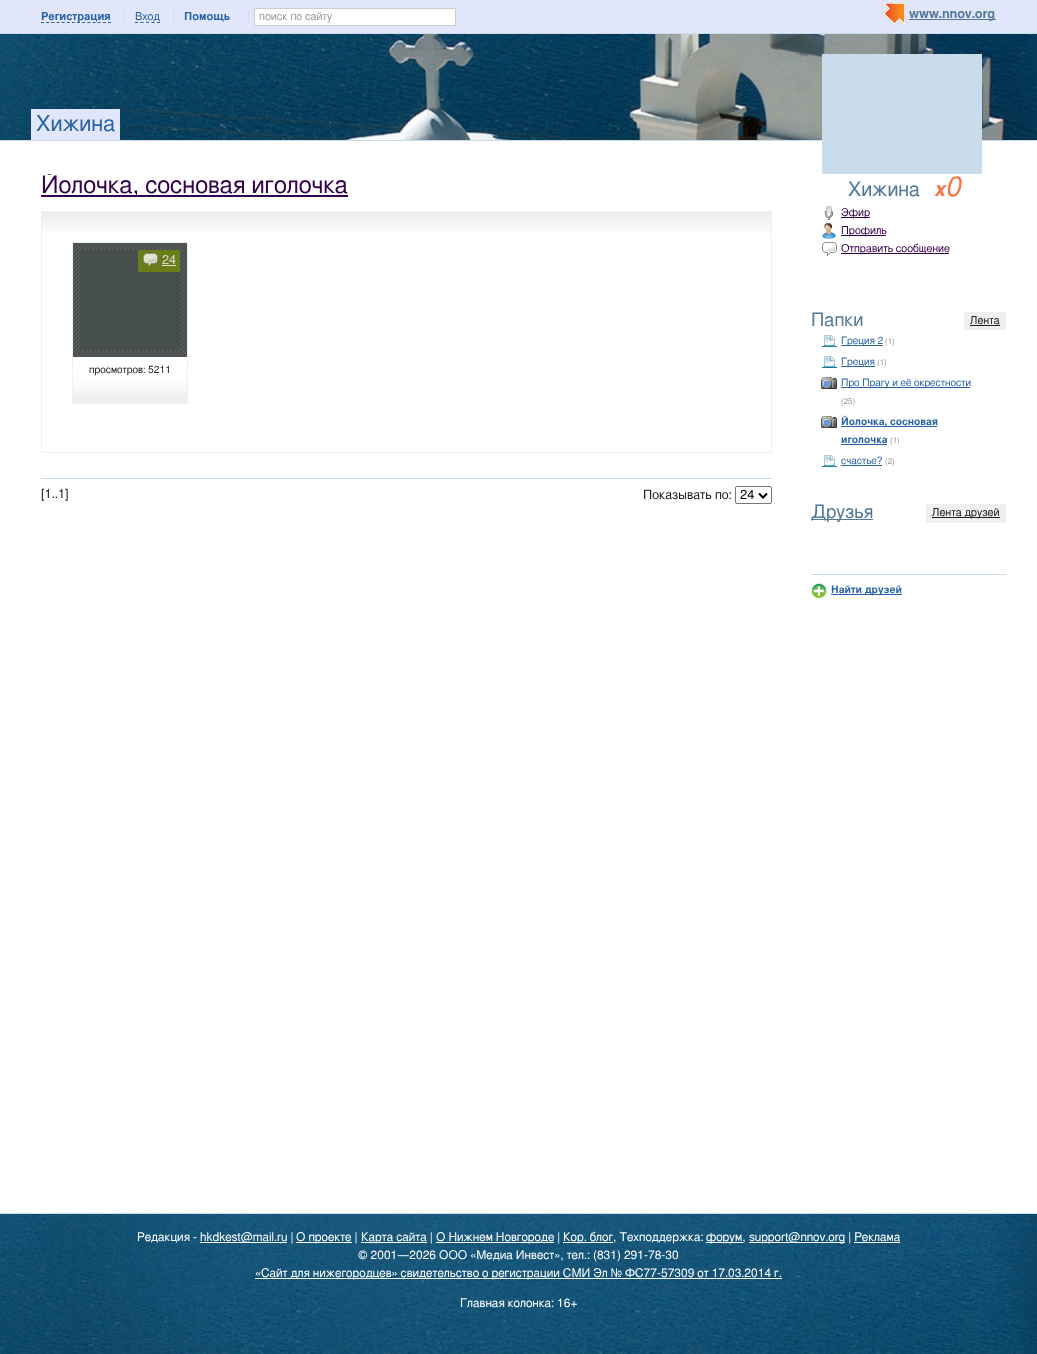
async function draw(canvas) {
  canvas.width = 1037
  canvas.height = 1354
  const ctx = canvas.getContext('2d')
  ctx.miterLimit = 4
  ctx.fontKerning = 'normal'
  async function loadImage(src) {
    const img = new Image()
    img.src = src
    await img.decode()
    return img
  }

  ctx.fillStyle = '#fff'
  ctx.fillRect(0, 0, 1037, 1354)
  ctx.drawImage(await loadImage('image0.png'), 0, 34, 15, 106)
  ctx.fillStyle = '#c8dceb'
  ctx.fillRect(0, 140, 1037, 1)
  ctx.drawImage(await loadImage('image1.png'), 15, 34, 1022, 106)
  ctx.fillStyle = '#e2e6fa'
  ctx.fillRect(0, 0, 1037, 33)
  ctx.fillStyle = '#c8dceb'
  ctx.fillRect(0, 33, 1037, 1)
  ctx.beginPath()
  ctx.moveTo(41, 22.5)
  ctx.lineTo(111, 22.5)
  ctx.strokeStyle = '#2964a6'
  ctx.setLineDash([3, 2.15])
  ctx.stroke()
  ctx.font = '600 11px FreeSans'
  ctx.fillStyle = '#2964a6'
  ctx.fillText('Регистрация', 41, 20)
  ctx.font = '11px FreeSans'
  ctx.fillText('Вход', 135, 20)
  ctx.fillStyle = '#c8dceb'
  ctx.fillRect(124, 11, 1, 11)
  ctx.beginPath()
  ctx.moveTo(135, 22.5)
  ctx.lineTo(160, 22.5)
  ctx.setLineDash([3, 2.5])
  ctx.stroke()
  ctx.font = '600 11px FreeSans'
  ctx.fillStyle = '#2964a6'
  ctx.fillText('Помощь', 184, 20)
  ctx.fillStyle = '#c8dceb'
  ctx.fillRect(173, 11, 1, 11)
  ctx.fillRect(248, 11, 1, 11)
  ctx.fillStyle = '#fff'
  ctx.beginPath()
  ctx.rect(254.5, 8.5, 201, 17)
  ctx.fill()
  ctx.strokeStyle = '#ccc'
  ctx.setLineDash([])
  ctx.stroke()
  ctx.font = '11px FreeSans'
  ctx.fillStyle = '#999'
  ctx.fillText('поиск по сайту', 259, 20)
  ctx.drawImage(await loadImage('image2.png'), 882, 3, 23, 23)
  ctx.fillStyle = '#537a98'
  ctx.fillRect(909, 19, 87, 1)
  ctx.font = '600 12.75px FreeSans'
  ctx.fillText('www.nnov.org', 909, 18)
  ctx.fillStyle = '#e2e6fa'
  ctx.fillRect(31, 109, 89, 31)
  ctx.font = '22px FreeSans'
  ctx.fillStyle = '#2964a6'
  ctx.fillText('Хижина', 36, 131)
  ctx.fillStyle = '#c8dceb'
  ctx.fillRect(822, 54, 160, 120)
  ctx.fillStyle = '#36024d'
  ctx.fillRect(41, 195, 307, 2)
  ctx.save()
  ctx.beginPath()
  ctx.rect(31, 174, 975, 607)
  ctx.clip()
  ctx.font = '24px FreeSans'
  ctx.fillText('Йолочка, сосновая иголочка', 41, 193)
  ctx.restore()
  ctx.drawImage(await loadImage('image3.png'), 42, 212, 729, 21)
  ctx.strokeStyle = '#f0f0f0'
  ctx.strokeRect(41.5, 211.5, 730, 241)
  ctx.drawImage(await loadImage('image4.png'), 73, 243, 114, 114)
  ctx.strokeRect(72.5, 242.5, 115, 161)
  ctx.fillStyle = '#474f4e'
  ctx.fillRect(80, 250, 100, 100)
  ctx.fillStyle = '#6a7d18'
  ctx.fillRect(138, 250, 42, 22)
  ctx.drawImage(await loadImage('image5.png'), 143, 253, 15, 14)
  ctx.font = '12.75px FreeSans'
  ctx.fillStyle = '#dadcdc'
  ctx.fillText('24', 162, 264)
  ctx.fillRect(162, 265, 14, 1)
  ctx.drawImage(await loadImage('image6.png'), 73, 357, 114, 46)
  ctx.font = '10.25px FreeSans'
  ctx.fillStyle = '#222'
  ctx.fillText('просмотров: 5211', 89, 373)
  ctx.fillStyle = '#c8dceb'
  ctx.fillRect(41, 478, 731, 1)
  ctx.font = '12.75px FreeSans'
  ctx.fillStyle = '#222'
  ctx.fillText('[1..1]', 41, 498)
  ctx.fillText('Показывать по:', 643, 499)
  ctx.beginPath()
  ctx.roundRect(735.5, 486.5, 36, 17, 1.5)
  ctx.strokeStyle = '#767676'
  ctx.stroke()
  ctx.beginPath()
  ctx.moveTo(759, 493.5)
  ctx.lineTo(763, 497.5)
  ctx.lineTo(767, 493.5)
  ctx.strokeStyle = '#000'
  ctx.lineWidth = 2
  ctx.stroke()
  ctx.font = '13px FreeSans'
  ctx.fillStyle = '#000'
  ctx.fillText('24', 740, 499)
  ctx.font = '20px FreeSans'
  ctx.fillStyle = '#537a98'
  ctx.fillText('Хижина', 848, 196)
  ctx.font = 'italic 600 20px FreeSans'
  ctx.fillStyle = '#fc7445'
  ctx.fillText('x', 934, 196)
  ctx.font = 'italic 28px FreeSans'
  ctx.fillText('0', 945, 196)
  ctx.drawImage(await loadImage('image7.png'), 824, 206, 10, 14)
  ctx.fillStyle = '#36024d'
  ctx.fillRect(841, 217, 29, 1)
  ctx.font = '10.9px FreeSans'
  ctx.fillText('Эфир', 841, 216)
  ctx.drawImage(await loadImage('image8.png'), 822, 223, 14, 16)
  ctx.fillRect(841, 235, 45, 1)
  ctx.fillText('Профиль', 841, 234)
  ctx.drawImage(await loadImage('image9.png'), 822, 242, 15, 14)
  ctx.fillRect(841, 253, 108, 1)
  ctx.fillText('Отправить сообщение', 841, 252)
  ctx.font = '18.5px FreeSans'
  ctx.fillStyle = '#537a98'
  ctx.fillText('Папки', 811, 326)
  ctx.fillStyle = '#f0f0f0'
  ctx.fillRect(964, 312, 42, 18)
  ctx.font = '11px FreeSans'
  ctx.fillStyle = '#222'
  ctx.fillText('Лента', 970, 324)
  ctx.fillRect(970, 325, 30, 1)
  ctx.drawImage(await loadImage('image10.png'), 822, 335, 15, 12)
  ctx.fillStyle = '#2964a6'
  ctx.fillRect(841, 345, 42, 1)
  ctx.font = '10.25px FreeSans'
  ctx.fillText('Греция 2', 841, 344)
  ctx.font = '8px FreeSans'
  ctx.fillStyle = '#999'
  ctx.fillText('(1)', 885, 344)
  ctx.drawImage(await loadImage('image10.png'), 822, 356, 15, 12)
  ctx.fillStyle = '#2964a6'
  ctx.fillRect(841, 366, 34, 1)
  ctx.font = '10.25px FreeSans'
  ctx.fillText('Греция', 841, 365)
  ctx.font = '8px FreeSans'
  ctx.fillStyle = '#999'
  ctx.fillText('(1)', 877, 365)
  ctx.drawImage(await loadImage('image11.png'), 821, 377, 16, 12)
  ctx.fillStyle = '#2964a6'
  ctx.fillRect(841, 387, 129, 1)
  ctx.font = '10.25px FreeSans'
  ctx.fillText('Про Прагу и её окрестности', 841, 386)
  ctx.font = '8px FreeSans'
  ctx.fillStyle = '#999'
  ctx.fillText('(25)', 841, 404)
  ctx.drawImage(await loadImage('image11.png'), 821, 416, 16, 12)
  ctx.fillStyle = '#2964a6'
  ctx.fillRect(841, 426, 96, 1)
  ctx.font = '600 10.25px FreeSans'
  ctx.fillText('Йолочка, сосновая', 841, 425)
  ctx.fillText('иголочка', 841, 443)
  ctx.fillRect(841, 444, 46, 1)
  ctx.font = '8px FreeSans'
  ctx.fillStyle = '#999'
  ctx.fillText('(1)', 890, 443)
  ctx.drawImage(await loadImage('image10.png'), 822, 455, 15, 12)
  ctx.font = '10.25px FreeSans'
  ctx.fillStyle = '#2964a6'
  ctx.fillText('счастье?', 841, 464)
  ctx.fillRect(841, 465, 41, 1)
  ctx.font = '8px FreeSans'
  ctx.fillStyle = '#999'
  ctx.fillText('(2)', 885, 464)
  ctx.fillStyle = '#537a98'
  ctx.fillRect(811, 519, 62, 1)
  ctx.font = '18.5px FreeSans'
  ctx.fillText('Друзья', 811, 518)
  ctx.fillStyle = '#f0f0f0'
  ctx.fillRect(926, 504, 80, 19)
  ctx.fillStyle = '#222'
  ctx.fillRect(932, 517, 68, 1)
  ctx.font = '11px FreeSans'
  ctx.fillText('Лента друзей', 932, 516)
  ctx.fillStyle = '#c8dceb'
  ctx.fillRect(811, 574, 195, 1)
  ctx.drawImage(await loadImage('image12.png'), 811, 583, 16, 16)
  ctx.fillStyle = '#2964a6'
  ctx.fillRect(831, 594, 71, 1)
  ctx.font = '600 10.25px FreeSans'
  ctx.fillText('Найти друзей', 831, 593)
  ctx.drawImage(await loadImage('image13.png'), 0, 1214, 1037, 140)
  ctx.fillStyle = '#c8dceb'
  ctx.fillRect(0, 1213, 1037, 1)
  ctx.font = '12px FreeSans'
  ctx.fillStyle = '#fff'
  ctx.fillText('Редакция -', 137, 1241)
  ctx.fillRect(200, 1242, 87, 1)
  ctx.fillText('hkdkest@mail.ru |', 200, 1241)
  ctx.fillRect(296, 1242, 56, 1)
  ctx.fillText('О проекте |', 296, 1241)
  ctx.fillRect(361, 1242, 66, 1)
  ctx.fillText('Карта сайта |', 361, 1241)
  ctx.fillRect(436, 1242, 118, 1)
  ctx.fillText('О Нижнем Новгороде |', 436, 1241)
  ctx.fillRect(563, 1242, 50, 1)
  ctx.fillText('Кор. блог, Техподдержка:', 563, 1241)
  ctx.fillRect(706, 1242, 37, 1)
  ctx.fillText('форум,', 706, 1241)
  ctx.fillRect(749, 1242, 96, 1)
  ctx.fillText('support@nnov.org | Реклама', 749, 1241)
  ctx.fillRect(854, 1242, 46, 1)
  ctx.fillText('© 2001—2026 ООО «Медиа Инвест», тел.: (831) 291-78-30', 358, 1259)
  ctx.fillRect(255, 1278, 527, 1)
  ctx.fillText('«Сайт для нижегородцев» свидетельство о регистрации СМИ Эл № ФС77-57309 от 17.03.2014 г.', 255, 1277)
  ctx.fillText('Главная колонка: 16+', 460, 1307)
}

draw(document.querySelector('canvas'))
